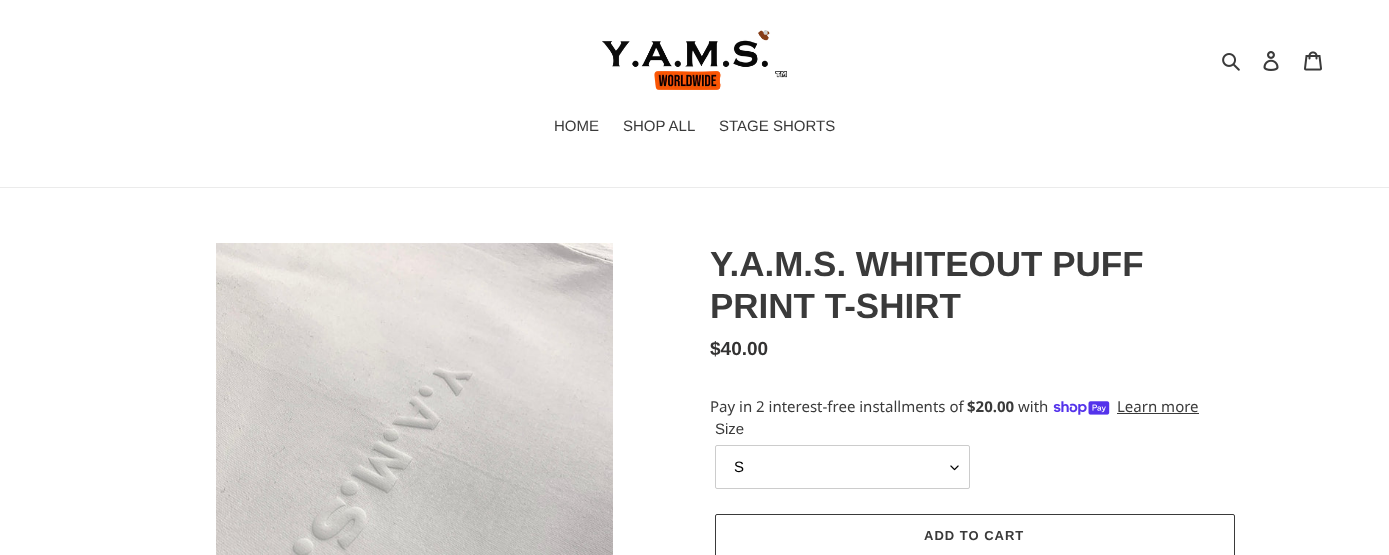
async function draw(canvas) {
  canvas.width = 1389
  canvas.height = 555
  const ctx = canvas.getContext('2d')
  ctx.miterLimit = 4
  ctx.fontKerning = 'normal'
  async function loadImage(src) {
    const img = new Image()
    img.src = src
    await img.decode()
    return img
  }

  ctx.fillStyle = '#fff'
  ctx.fillRect(0, 0, 1389, 555)
  ctx.drawImage(await loadImage('image0.png'), 602, 30, 185, 60)
  ctx.drawImage(await loadImage('image1.png'), 1222, 53, 18, 18)
  ctx.drawImage(await loadImage('image2.png'), 1263, 51, 16, 20)
  ctx.drawImage(await loadImage('image3.png'), 1304, 51, 18, 20)
  ctx.fillStyle = '#ebebeb'
  ctx.fillRect(0, 187, 1389, 1)
  ctx.font = '15px Liberation Sans'
  ctx.fillStyle = '#3a3a3a'
  ctx.fillText('HOME', 554, 131)
  ctx.fillText('SHOP ALL', 623, 131)
  ctx.fillText('STAGE SHORTS', 719, 131)
  ctx.drawImage(await loadImage('image4.png'), 216, 243, 397, 312)
  ctx.font = 'bold 35px Liberation Sans'
  ctx.fillText('Y.A.M.S. WHITEOUT PUFF', 710, 276)
  ctx.fillText('PRINT T-SHIRT', 710, 318)
  ctx.font = 'bold 19px Liberation Sans'
  ctx.fillStyle = '#333232'
  ctx.fillText('$40.00', 710, 355)
  ctx.font = '15px Noto Sans'
  ctx.fillStyle = '#3a3a3a'
  ctx.fillText('Pay in 2 interest-free installments of', 710, 412)
  ctx.font = 'bold 15px Noto Sans'
  ctx.fillText('$20.00', 967, 412)
  ctx.font = '15px Noto Sans'
  ctx.fillText('with', 1018, 412)
  ctx.drawImage(await loadImage('image5.png'), 1053, 401, 57, 14)
  ctx.fillText('Learn more', 1117, 412)
  ctx.fillRect(1117, 413, 82, 1)
  ctx.font = '15px Liberation Sans'
  ctx.fillText('Size', 715, 434)
  ctx.drawImage(await loadImage('image6.png'), 950, 465, 9, 6)
  ctx.beginPath()
  ctx.roundRect(715.5, 445.5, 254, 43, 1.5)
  ctx.strokeStyle = '#ccc'
  ctx.stroke()
  ctx.fillStyle = '#000'
  ctx.fillText('S', 734, 472)
  ctx.beginPath()
  ctx.roundRect(715.5, 514.5, 519, 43, 1.5)
  ctx.strokeStyle = '#3a3a3a'
  ctx.stroke()
  ctx.letterSpacing = '1px'
  ctx.font = 'bold 13px Liberation Sans'
  ctx.fillStyle = '#3a3a3a'
  ctx.fillText('ADD TO CART', 924, 540)
}

draw(document.querySelector('canvas'))
